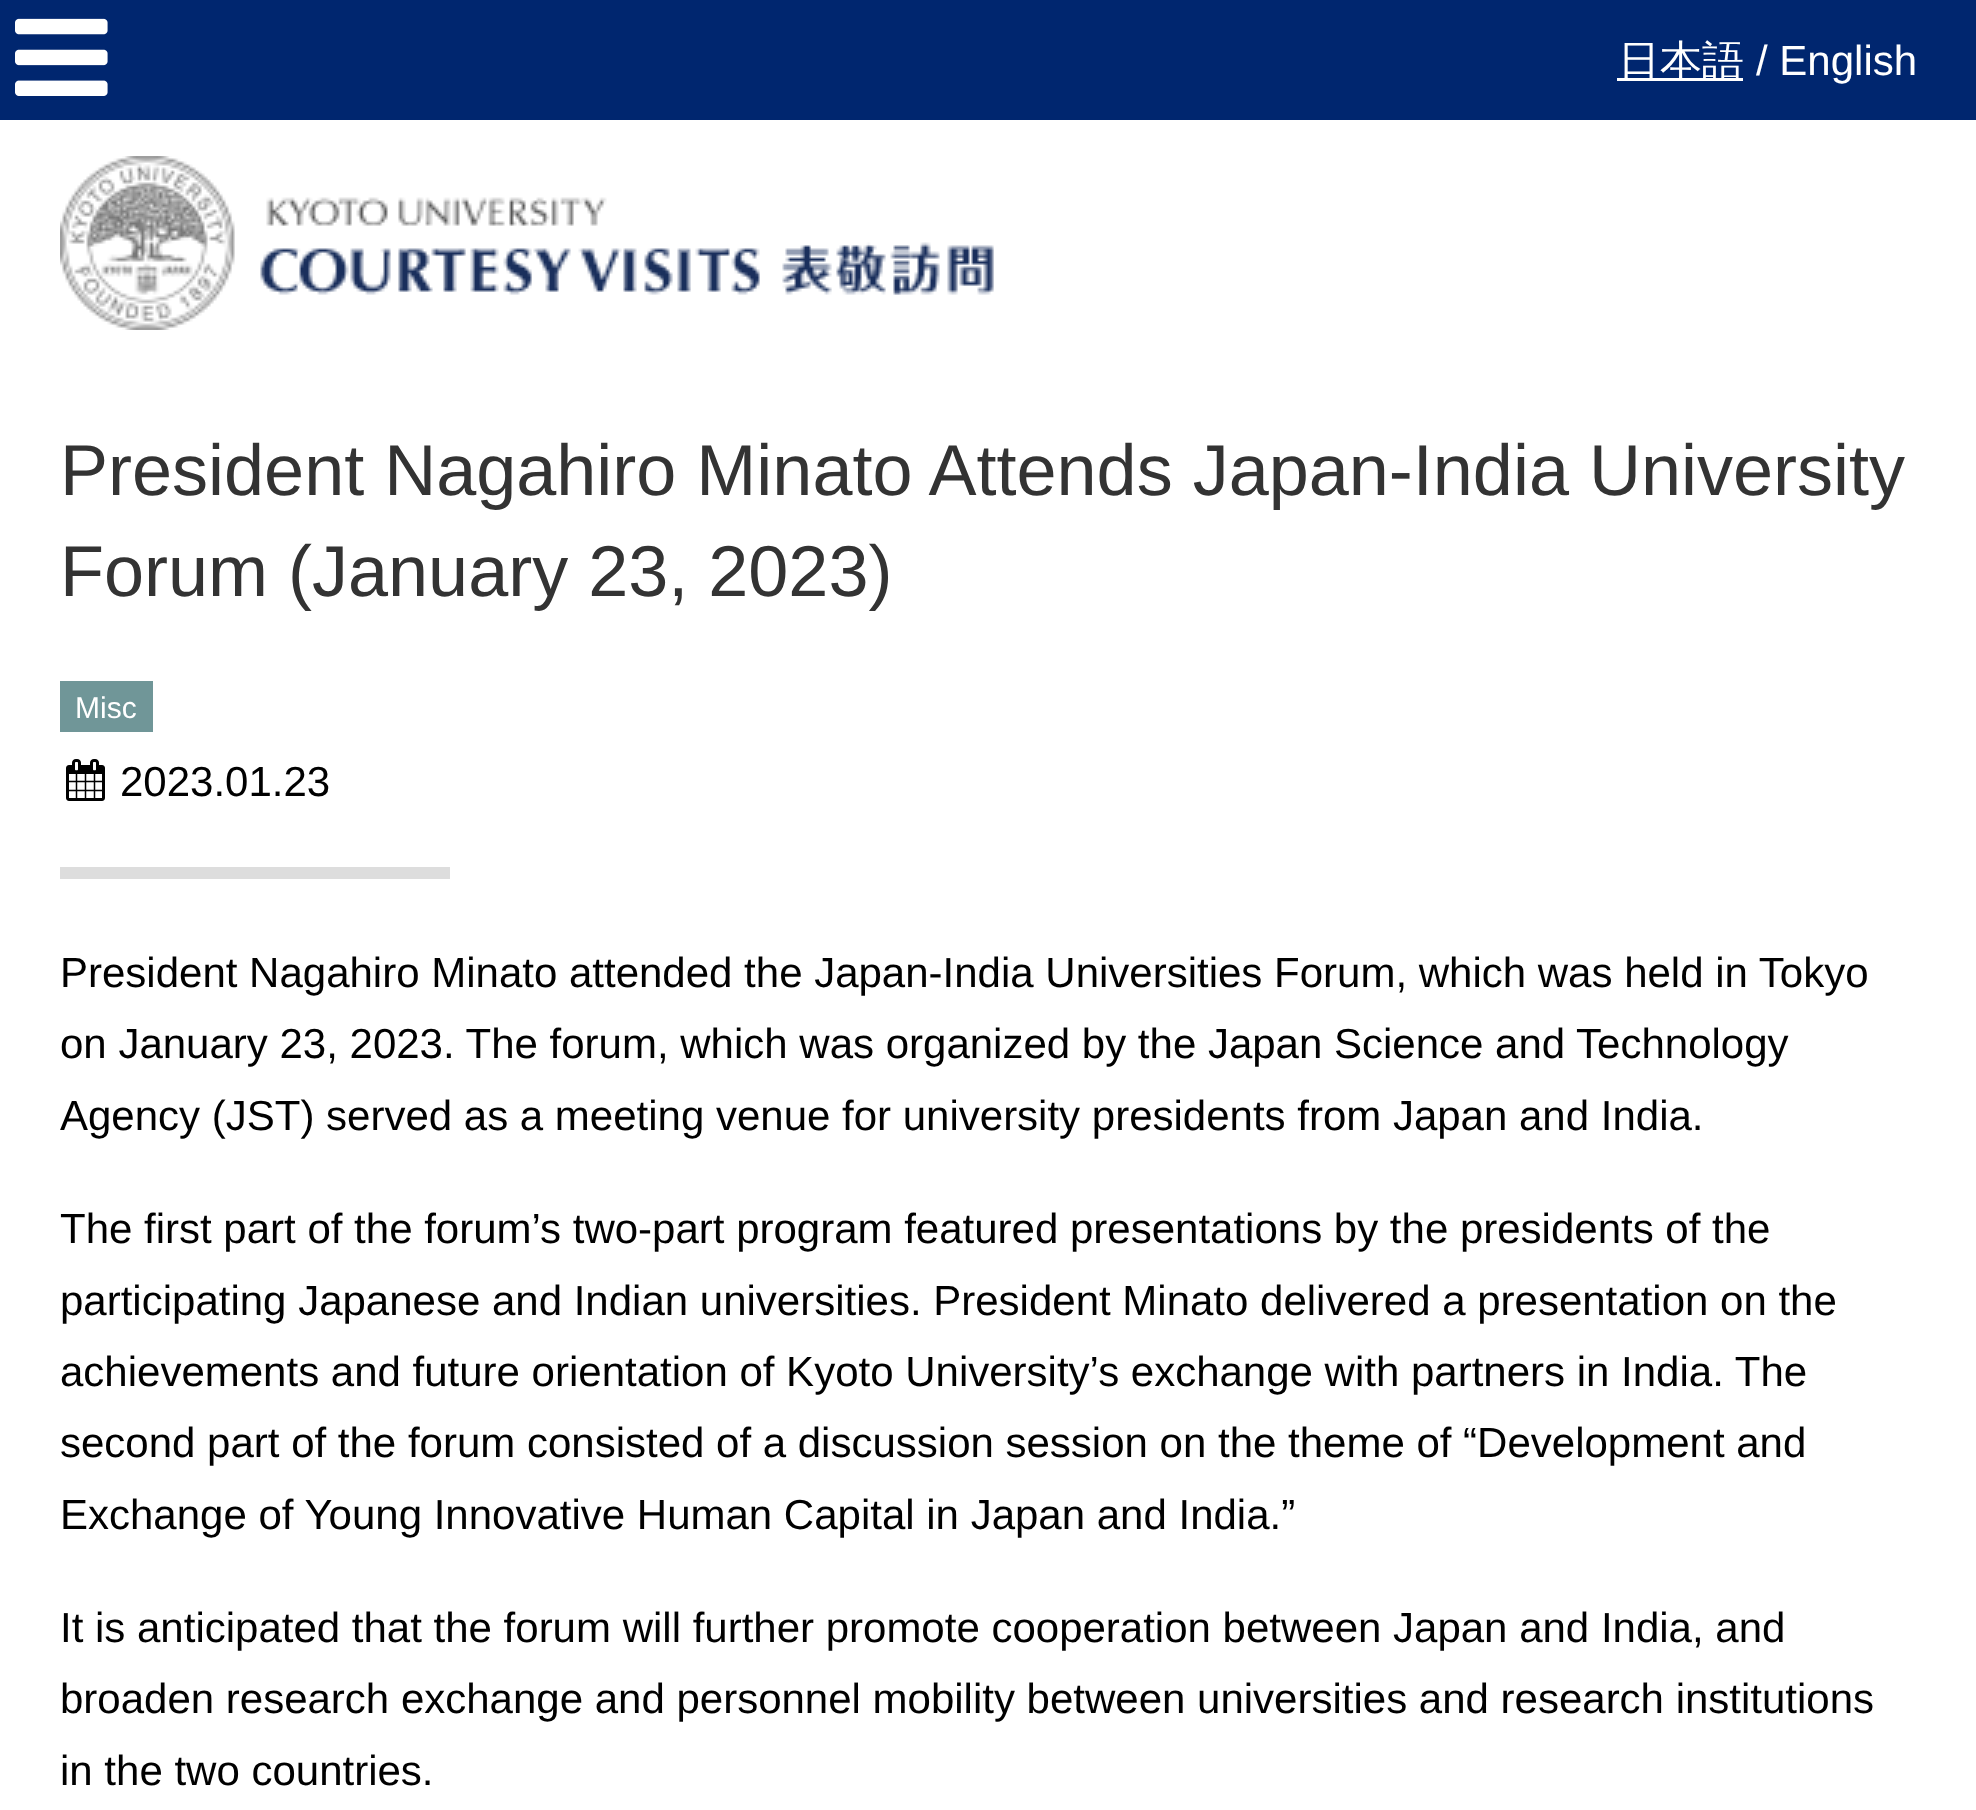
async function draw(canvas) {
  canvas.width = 1976
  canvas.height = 1810
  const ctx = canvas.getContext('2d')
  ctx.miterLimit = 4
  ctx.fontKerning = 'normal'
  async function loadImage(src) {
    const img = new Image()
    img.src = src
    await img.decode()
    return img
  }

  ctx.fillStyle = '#fff'
  ctx.fillRect(0, 0, 1976, 1810)
  ctx.fillStyle = '#00266f'
  ctx.fillRect(0, 0, 1976, 120)
  ctx.drawImage(await loadImage('image0.png'), 15, 18, 93, 78)
  ctx.fillStyle = '#fff'
  ctx.fillRect(1617, 78, 126, 3)
  ctx.font = '500 42px WenQuanYi Zen Hei'
  ctx.fillText('日本語', 1618, 75)
  ctx.font = '42px Liberation Sans'
  ctx.fillText('/ English', 1756, 75)
  ctx.drawImage(await loadImage('image1.png'), 60, 156, 934, 174)
  ctx.font = '72px Liberation Sans'
  ctx.fillStyle = '#333'
  ctx.fillText('President Nagahiro Minato Attends Japan-India University', 60, 495)
  ctx.fillText('Forum (January 23, 2023)', 60, 596)
  ctx.fillStyle = '#ddd'
  ctx.fillRect(60, 867, 390, 12)
  ctx.fillStyle = '#709698'
  ctx.fillRect(60, 681, 93, 51)
  ctx.font = '30px Liberation Sans'
  ctx.fillStyle = '#fff'
  ctx.fillText('Misc', 75, 718)
  ctx.drawImage(await loadImage('image2.png'), 66, 759, 39, 42)
  ctx.font = '42px Liberation Sans'
  ctx.fillStyle = '#000'
  ctx.fillText('2023.01.23', 120, 796)
  ctx.fillText('President Nagahiro Minato attended the Japan-India Universities Forum, which was held in Tokyo', 60, 987)
  ctx.fillText('on January 23, 2023. The forum, which was organized by the Japan Science and Technology', 60, 1058)
  ctx.fillText('Agency (JST) served as a meeting venue for university presidents from Japan and India.', 60, 1130)
  ctx.fillText('The first part of the forum’s two-part program featured presentations by the presidents of the', 60, 1243)
  ctx.fillText('participating Japanese and Indian universities. President Minato delivered a presentation on the', 60, 1315)
  ctx.fillText('achievements and future orientation of Kyoto University’s exchange with partners in India. The', 60, 1386)
  ctx.fillText('second part of the forum consisted of a discussion session on the theme of “Development and', 60, 1457)
  ctx.fillText('Exchange of Young Innovative Human Capital in Japan and India.”', 60, 1529)
  ctx.fillText('It is anticipated that the forum will further promote cooperation between Japan and India, and', 60, 1642)
  ctx.fillText('broaden research exchange and personnel mobility between universities and research institutions', 60, 1713)
  ctx.fillText('in the two countries.', 60, 1785)
}

draw(document.querySelector('canvas'))
